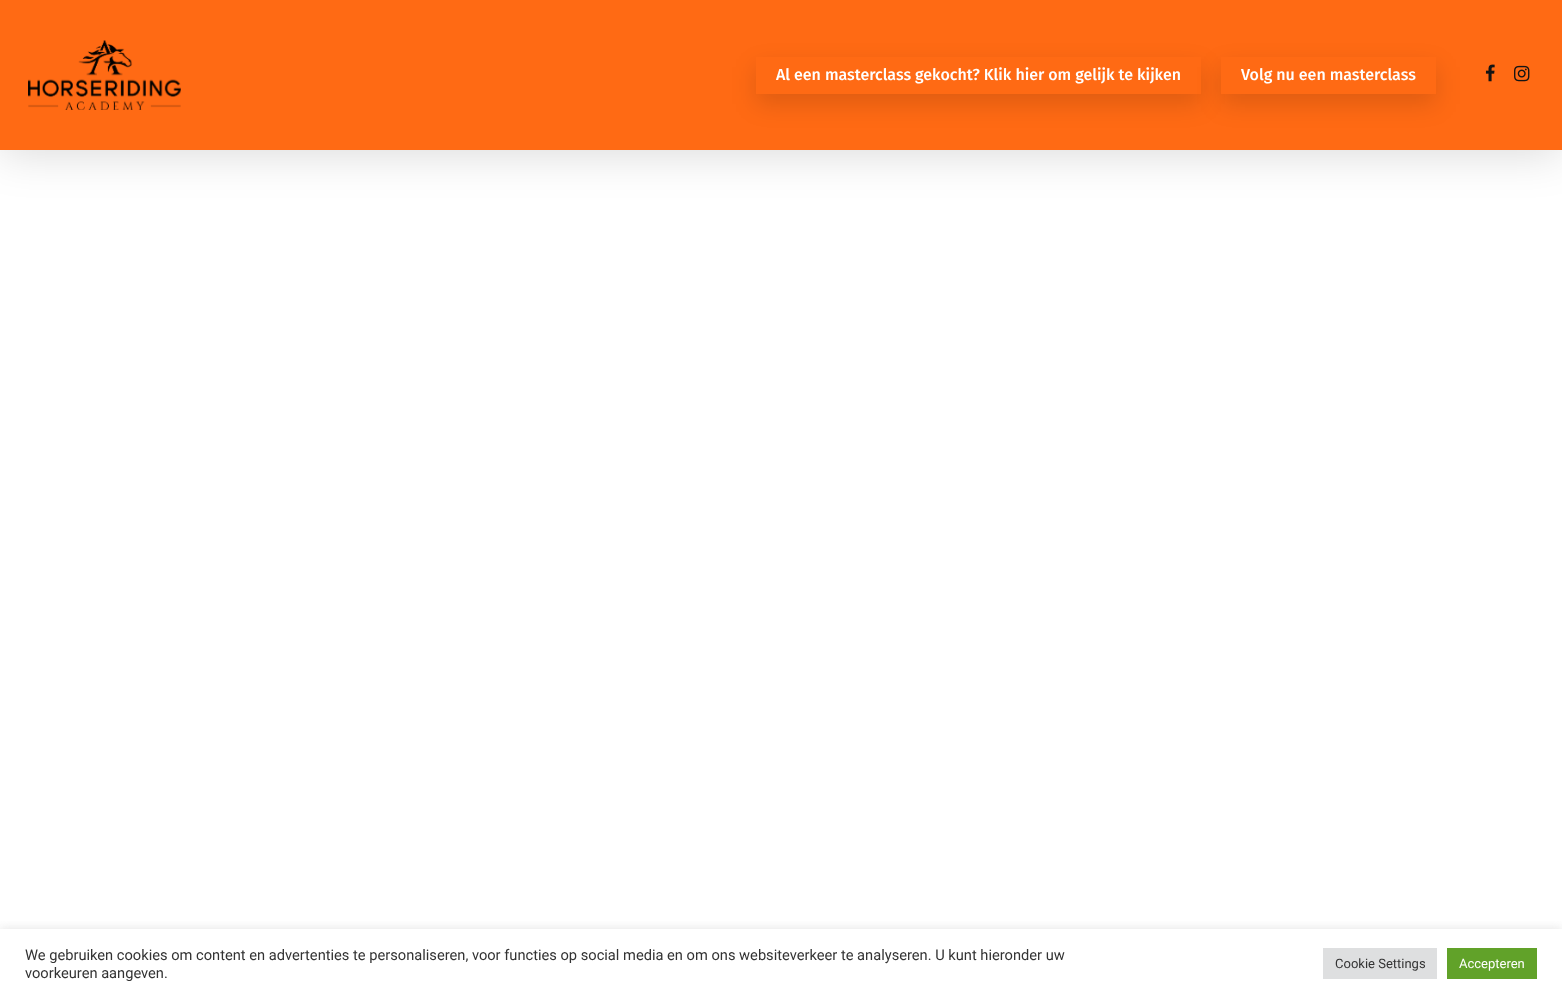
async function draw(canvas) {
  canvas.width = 1562
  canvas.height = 998
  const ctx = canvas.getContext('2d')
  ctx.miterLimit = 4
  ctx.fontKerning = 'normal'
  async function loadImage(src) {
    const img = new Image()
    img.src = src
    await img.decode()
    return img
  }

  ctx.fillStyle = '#fff'
  ctx.fillRect(0, 0, 1562, 998)
  ctx.fillStyle = '#00000026'
  ctx.filter = 'blur(22.5px)'
  ctx.beginPath()
  ctx.rect(0, 3, 1562, 150)
  ctx.fill()
  ctx.filter = 'none'
  ctx.fillStyle = '#ff6a14'
  ctx.fillRect(0, 0, 1562, 150)
  ctx.drawImage(await loadImage('image0.png'), 28, 40, 153, 70)
  ctx.fillStyle = '#00000021'
  ctx.filter = 'blur(12.5px)'
  ctx.beginPath()
  ctx.rect(756, 67, 445, 37)
  ctx.fill()
  ctx.filter = 'none'
  ctx.fillStyle = '#ff6a14'
  ctx.fillRect(756, 57, 445, 37)
  ctx.font = '500 16px Fira Sans'
  ctx.fillStyle = '#fff'
  ctx.fillText('Al een masterclass gekocht? Klik hier om gelijk te kijken', 776, 80)
  ctx.fillStyle = '#00000021'
  ctx.filter = 'blur(12.5px)'
  ctx.beginPath()
  ctx.rect(1221, 67, 215, 37)
  ctx.fill()
  ctx.filter = 'none'
  ctx.fillStyle = '#ff6a14'
  ctx.fillRect(1221, 57, 215, 37)
  ctx.fillStyle = '#fff'
  ctx.fillText('Volg nu een masterclass', 1241, 80)
  ctx.drawImage(await loadImage('image1.png'), 1485, 64, 10, 18)
  ctx.drawImage(await loadImage('image2.png'), 1514, 65, 16, 17)
  ctx.save()
  ctx.beginPath()
  ctx.rect(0, 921, 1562, 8)
  ctx.clip()
  ctx.fillStyle = '#acabab4d'
  ctx.filter = 'blur(5px)'
  ctx.beginPath()
  ctx.rect(0, 928, 1562, 69)
  ctx.fill()
  ctx.filter = 'none'
  ctx.restore()
  ctx.font = '14.67px Roboto'
  ctx.fillStyle = '#333'
  ctx.fillText('We gebruiken cookies om content en advertenties te personaliseren, voor functies op social media en om ons websiteverkeer te analyseren. U kunt hieronder uw', 25, 960)
  ctx.fillText('voorkeuren aangeven.', 25, 978)
  ctx.fillStyle = '#dedfe0'
  ctx.fillRect(1323, 948, 114, 31)
  ctx.font = '13px Roboto'
  ctx.fillStyle = '#333'
  ctx.fillText('Cookie Settings', 1335, 968)
  ctx.fillStyle = '#61a229'
  ctx.fillRect(1447, 948, 90, 31)
  ctx.fillStyle = '#fff'
  ctx.fillText('Accepteren', 1459, 968)
}

draw(document.querySelector('canvas'))
